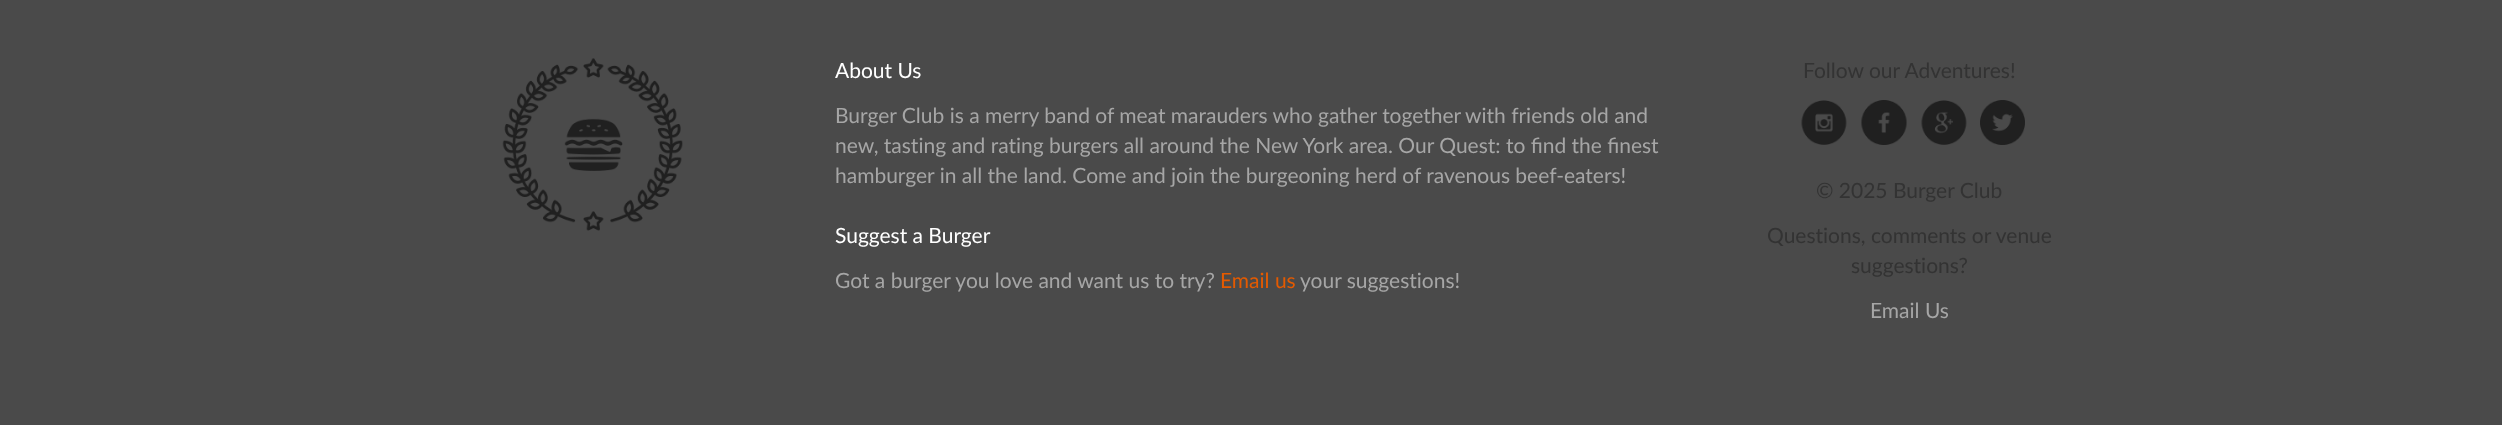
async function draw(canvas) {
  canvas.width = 2502
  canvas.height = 425
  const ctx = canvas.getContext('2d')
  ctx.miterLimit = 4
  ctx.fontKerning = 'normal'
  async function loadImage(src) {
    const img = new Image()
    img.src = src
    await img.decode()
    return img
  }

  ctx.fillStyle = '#4a4a4a'
  ctx.fillRect(0, 0, 2502, 425)
  ctx.drawImage(await loadImage('image0.png'), 502, 58, 181, 173)
  ctx.font = '21px Lato'
  ctx.fillStyle = '#fff'
  ctx.fillText('About Us', 835, 78)
  ctx.fillStyle = '#a6a6a6'
  ctx.fillText('Burger Club is a merry band of meat marauders who gather together', 835, 123)
  ctx.fillText('with friends old and', 1465, 123)
  ctx.fillText('new, tasting and rating burgers all around the New York area. Our Quest: to find the finest', 835, 153)
  ctx.fillText('hamburger in all the land. Come and join the burgeoning herd of ravenous beef-eaters!', 835, 183)
  ctx.fillStyle = '#fff'
  ctx.fillText('Suggest a Burger', 835, 243)
  ctx.fillStyle = '#a6a6a6'
  ctx.fillText('Got a burger you love and want us to try?', 835, 288)
  ctx.fillStyle = '#e45a00'
  ctx.fillText('Email us', 1220, 288)
  ctx.fillStyle = '#a6a6a6'
  ctx.fillText('your suggestions!', 1300, 288)
  ctx.fillStyle = '#333'
  ctx.fillText('Follow our Adventures!', 1803, 78)
  ctx.drawImage(await loadImage('image1.png'), 1801, 100, 46, 45)
  ctx.drawImage(await loadImage('image2.png'), 1861, 100, 46, 45)
  ctx.drawImage(await loadImage('image3.png'), 1921, 100, 46, 45)
  ctx.drawImage(await loadImage('image4.png'), 1980, 100, 45, 45)
  ctx.fillText('© 2025 Burger Club', 1816, 198)
  ctx.fillText('Questions, comments or venue', 1767, 243)
  ctx.fillText('suggestions?', 1851, 273)
  ctx.fillStyle = '#a6a6a6'
  ctx.fillText('Email Us', 1870, 318)
}

draw(document.querySelector('canvas'))
